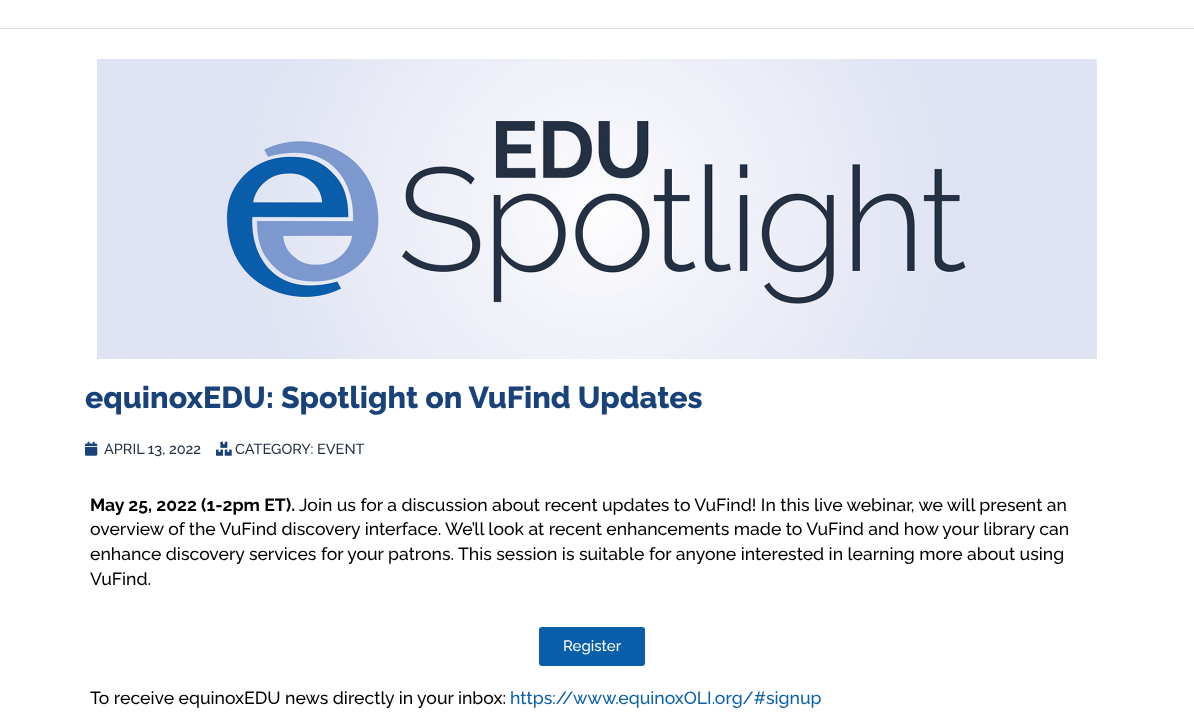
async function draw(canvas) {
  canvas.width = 1194
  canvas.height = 716
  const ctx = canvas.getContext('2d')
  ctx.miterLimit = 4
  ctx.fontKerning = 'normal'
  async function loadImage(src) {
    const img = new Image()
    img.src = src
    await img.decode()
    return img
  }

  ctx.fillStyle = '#fff'
  ctx.fillRect(0, 0, 1194, 716)
  ctx.fillStyle = '#ddd9d9'
  ctx.fillRect(0, 28, 1194, 1)
  ctx.drawImage(await loadImage('image0.png'), 97, 59, 1000, 300)
  ctx.font = '800 30.4px Raleway'
  ctx.fillStyle = '#19427a'
  ctx.fillText('equinoxEDU: Spotlight on VuFind Updates', 85, 408)
  ctx.drawImage(await loadImage('image1.png'), 85, 441, 13, 15)
  ctx.font = '500 14.5px Raleway'
  ctx.fillStyle = '#243144'
  ctx.fillText('APRIL 13, 2022', 104, 454)
  ctx.drawImage(await loadImage('image2.png'), 216, 441, 16, 15)
  ctx.fillText('CATEGORY: EVENT', 235, 454)
  ctx.font = 'bold 17.6px Raleway'
  ctx.fillStyle = '#000'
  ctx.fillText('May 25, 2022 (1-2pm ET).', 90, 511)
  ctx.font = '500 17.6px Raleway'
  ctx.fillText('Join us for a discussion about recent updates to VuFind! In this live webinar, we will present an', 299, 511)
  ctx.fillText('overview of the VuFind discovery interface. We’ll look at recent enhancements made to VuFind and how your library can', 90, 535)
  ctx.fillText('enhance discovery services for your patrons. This session is suitable for anyone interested in learning more about using', 90, 560)
  ctx.fillText('VuFind.', 90, 585)
  ctx.fillStyle = '#0a5fab'
  ctx.beginPath()
  ctx.roundRect(539, 627, 106, 39, 3)
  ctx.fill()
  ctx.font = '500 15px Raleway'
  ctx.fillStyle = '#fff'
  ctx.fillText('Register', 563, 651)
  ctx.font = '500 17.6px Raleway'
  ctx.fillStyle = '#000'
  ctx.fillText('To receive equinoxEDU news directly in your inbox:', 90, 704)
  ctx.fillStyle = '#0a5fab'
  ctx.fillText('https://www.equinoxOLI.org/#signup', 510, 704)
}

draw(document.querySelector('canvas'))
